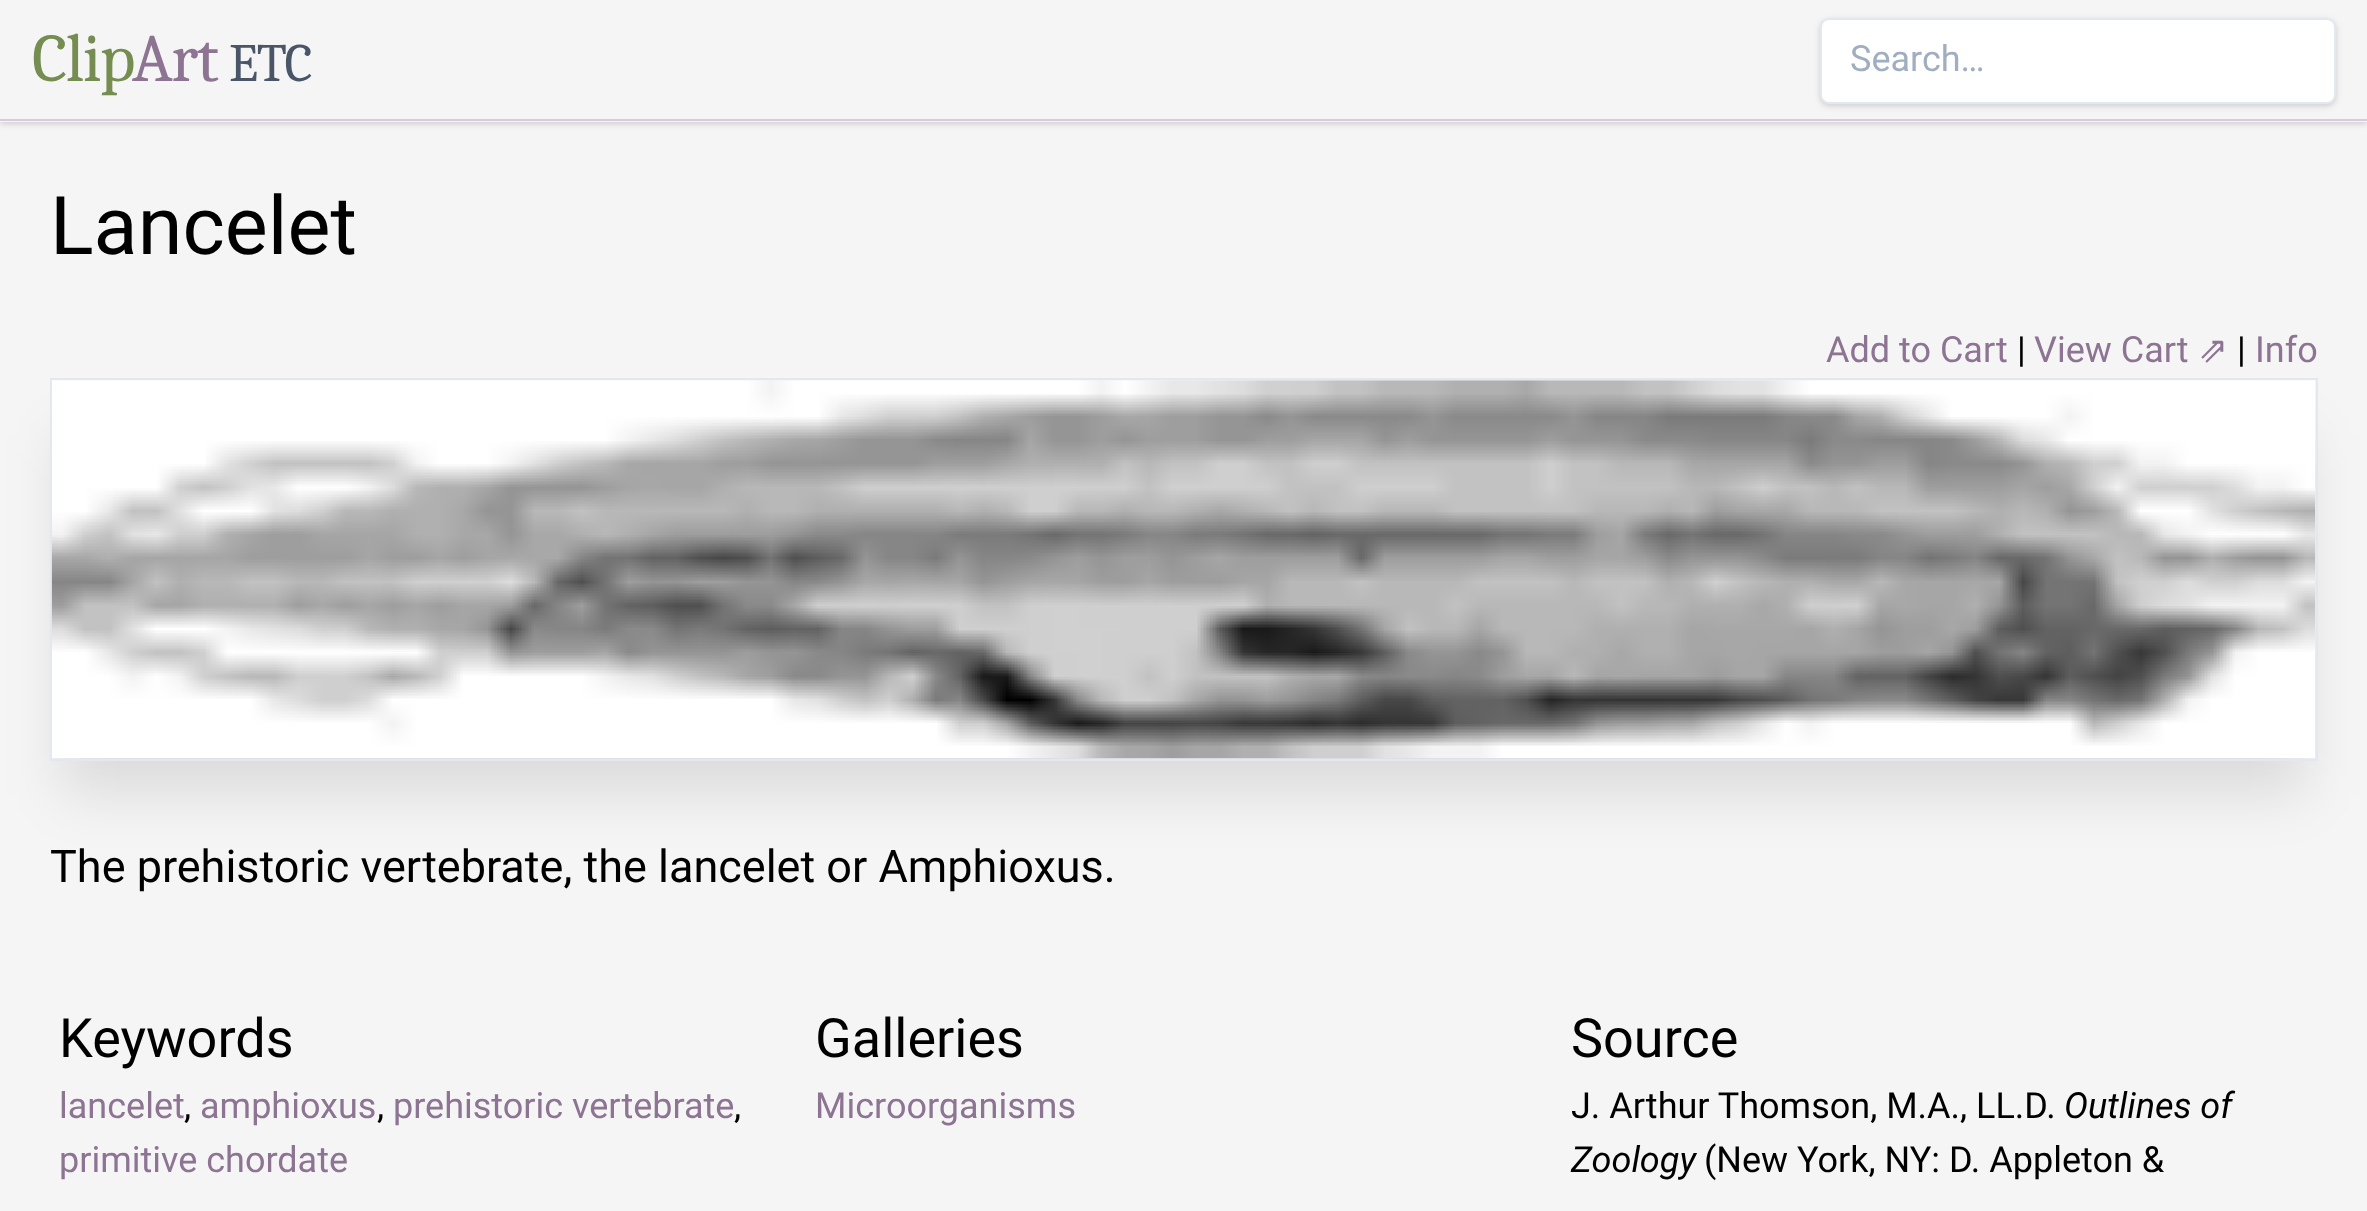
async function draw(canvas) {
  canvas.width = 2367
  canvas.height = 1211
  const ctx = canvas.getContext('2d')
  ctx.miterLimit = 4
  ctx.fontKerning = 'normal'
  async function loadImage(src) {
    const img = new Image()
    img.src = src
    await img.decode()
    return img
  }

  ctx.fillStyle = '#f5f5f5'
  ctx.fillRect(0, 0, 2367, 1211)
  ctx.save()
  ctx.beginPath()
  ctx.moveTo(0, 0)
  ctx.lineTo(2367, 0)
  ctx.lineTo(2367, 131)
  ctx.lineTo(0, 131)
  ctx.closePath()
  ctx.moveTo(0, 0)
  ctx.lineTo(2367, 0)
  ctx.lineTo(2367, 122)
  ctx.lineTo(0, 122)
  ctx.closePath()
  ctx.clip('evenodd')
  ctx.fillStyle = '#0000000f'
  ctx.filter = 'blur(2px)'
  ctx.beginPath()
  ctx.rect(0, 2, 2367, 122)
  ctx.fill()
  ctx.filter = 'none'
  ctx.restore()
  ctx.save()
  ctx.beginPath()
  ctx.moveTo(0, 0)
  ctx.lineTo(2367, 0)
  ctx.lineTo(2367, 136)
  ctx.lineTo(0, 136)
  ctx.closePath()
  ctx.moveTo(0, 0)
  ctx.lineTo(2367, 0)
  ctx.lineTo(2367, 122)
  ctx.lineTo(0, 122)
  ctx.closePath()
  ctx.clip('evenodd')
  ctx.fillStyle = '#0000001a'
  ctx.filter = 'blur(3.5px)'
  ctx.beginPath()
  ctx.rect(0, 2, 2367, 122)
  ctx.fill()
  ctx.filter = 'none'
  ctx.restore()
  ctx.fillStyle = '#dbc8e0'
  ctx.fillRect(0, 119, 2367, 2)
  ctx.letterSpacing = '-1.5px'
  ctx.font = '68px Caladea'
  ctx.fillStyle = '#758d50'
  ctx.fillText('Clip', 32, 81)
  ctx.fillStyle = '#8d7493'
  ctx.fillText('Art', 132, 81)
  ctx.font = '54px Caladea'
  ctx.fillStyle = '#4a5568'
  ctx.fillText('ETC', 229, 81)
  ctx.fillStyle = '#0000000f'
  ctx.filter = 'blur(2px)'
  ctx.beginPath()
  ctx.roundRect(1820, 20, 516, 86, 9)
  ctx.fill()
  ctx.filter = 'none'
  ctx.fillStyle = '#0000001a'
  ctx.filter = 'blur(3.5px)'
  ctx.beginPath()
  ctx.roundRect(1820, 20, 516, 86, 9)
  ctx.fill()
  ctx.filter = 'none'
  ctx.fillStyle = '#fff'
  ctx.beginPath()
  ctx.roundRect(1821, 19, 514, 84, 8)
  ctx.fill()
  ctx.strokeStyle = '#e2e8f0'
  ctx.lineWidth = 2
  ctx.stroke()
  ctx.letterSpacing = '0px'
  ctx.font = '36px Roboto'
  ctx.fillStyle = '#a0aec0'
  ctx.fillText('Search…', 1850, 71)
  ctx.font = '81px Roboto'
  ctx.fillStyle = '#000'
  ctx.fillText('Lancelet', 50, 254)
  ctx.font = '36px Roboto'
  ctx.fillStyle = '#8d7493'
  ctx.fillText('Add to Cart', 1826, 362)
  ctx.fillStyle = '#000'
  ctx.fillText('|', 2017, 362)
  ctx.fillStyle = '#8d7493'
  ctx.fillText('View Cart', 2034, 362)
  ctx.font = '36px DejaVu Sans'
  ctx.fillText('⇗', 2198, 362)
  ctx.font = '36px Roboto'
  ctx.fillStyle = '#000'
  ctx.fillText('|', 2237, 362)
  ctx.fillStyle = '#8d7493'
  ctx.fillText('Info', 2255, 362)
  ctx.fillStyle = '#0000001a'
  ctx.filter = 'blur(28px)'
  ctx.beginPath()
  ctx.rect(61, 434, 2245, 360)
  ctx.fill()
  ctx.filter = 'none'
  ctx.strokeRect(51, 379, 2266, 381)
  ctx.drawImage(await loadImage('image0.png'), 51, 380, 2265, 379)
  ctx.font = '45px Roboto'
  ctx.fillStyle = '#000'
  ctx.fillText('The prehistoric vertebrate, the lancelet or Amphioxus.', 50, 882)
  ctx.font = '54px Roboto'
  ctx.fillText('Keywords', 59, 1057)
  ctx.font = '36px Roboto'
  ctx.fillStyle = '#8d7493'
  ctx.fillText('lancelet', 59, 1118)
  ctx.fillStyle = '#000'
  ctx.fillText(',', 184, 1118)
  ctx.fillStyle = '#8d7493'
  ctx.fillText('amphioxus', 200, 1118)
  ctx.fillStyle = '#000'
  ctx.fillText(',', 377, 1118)
  ctx.fillStyle = '#8d7493'
  ctx.fillText('prehistoric vertebrate', 393, 1118)
  ctx.fillStyle = '#000'
  ctx.fillText(',', 734, 1118)
  ctx.fillStyle = '#8d7493'
  ctx.fillText('primitive chordate', 59, 1172)
  ctx.font = '54px Roboto'
  ctx.fillStyle = '#000'
  ctx.fillText('Galleries', 815, 1057)
  ctx.font = '36px Roboto'
  ctx.fillStyle = '#8d7493'
  ctx.fillText('Microorganisms', 815, 1118)
  ctx.font = '54px Roboto'
  ctx.fillStyle = '#000'
  ctx.fillText('Source', 1571, 1057)
  ctx.font = '36px Roboto'
  ctx.fillText('J. Arthur Thomson, M.A., LL.D.', 1571, 1118)
  ctx.font = 'italic 36px Roboto'
  ctx.fillText('Outlines of', 2064, 1118)
  ctx.fillText('Zoology', 1571, 1172)
  ctx.font = '36px Roboto'
  ctx.fillText('(New York, NY: D. Appleton &', 1704, 1172)
}

draw(document.querySelector('canvas'))
